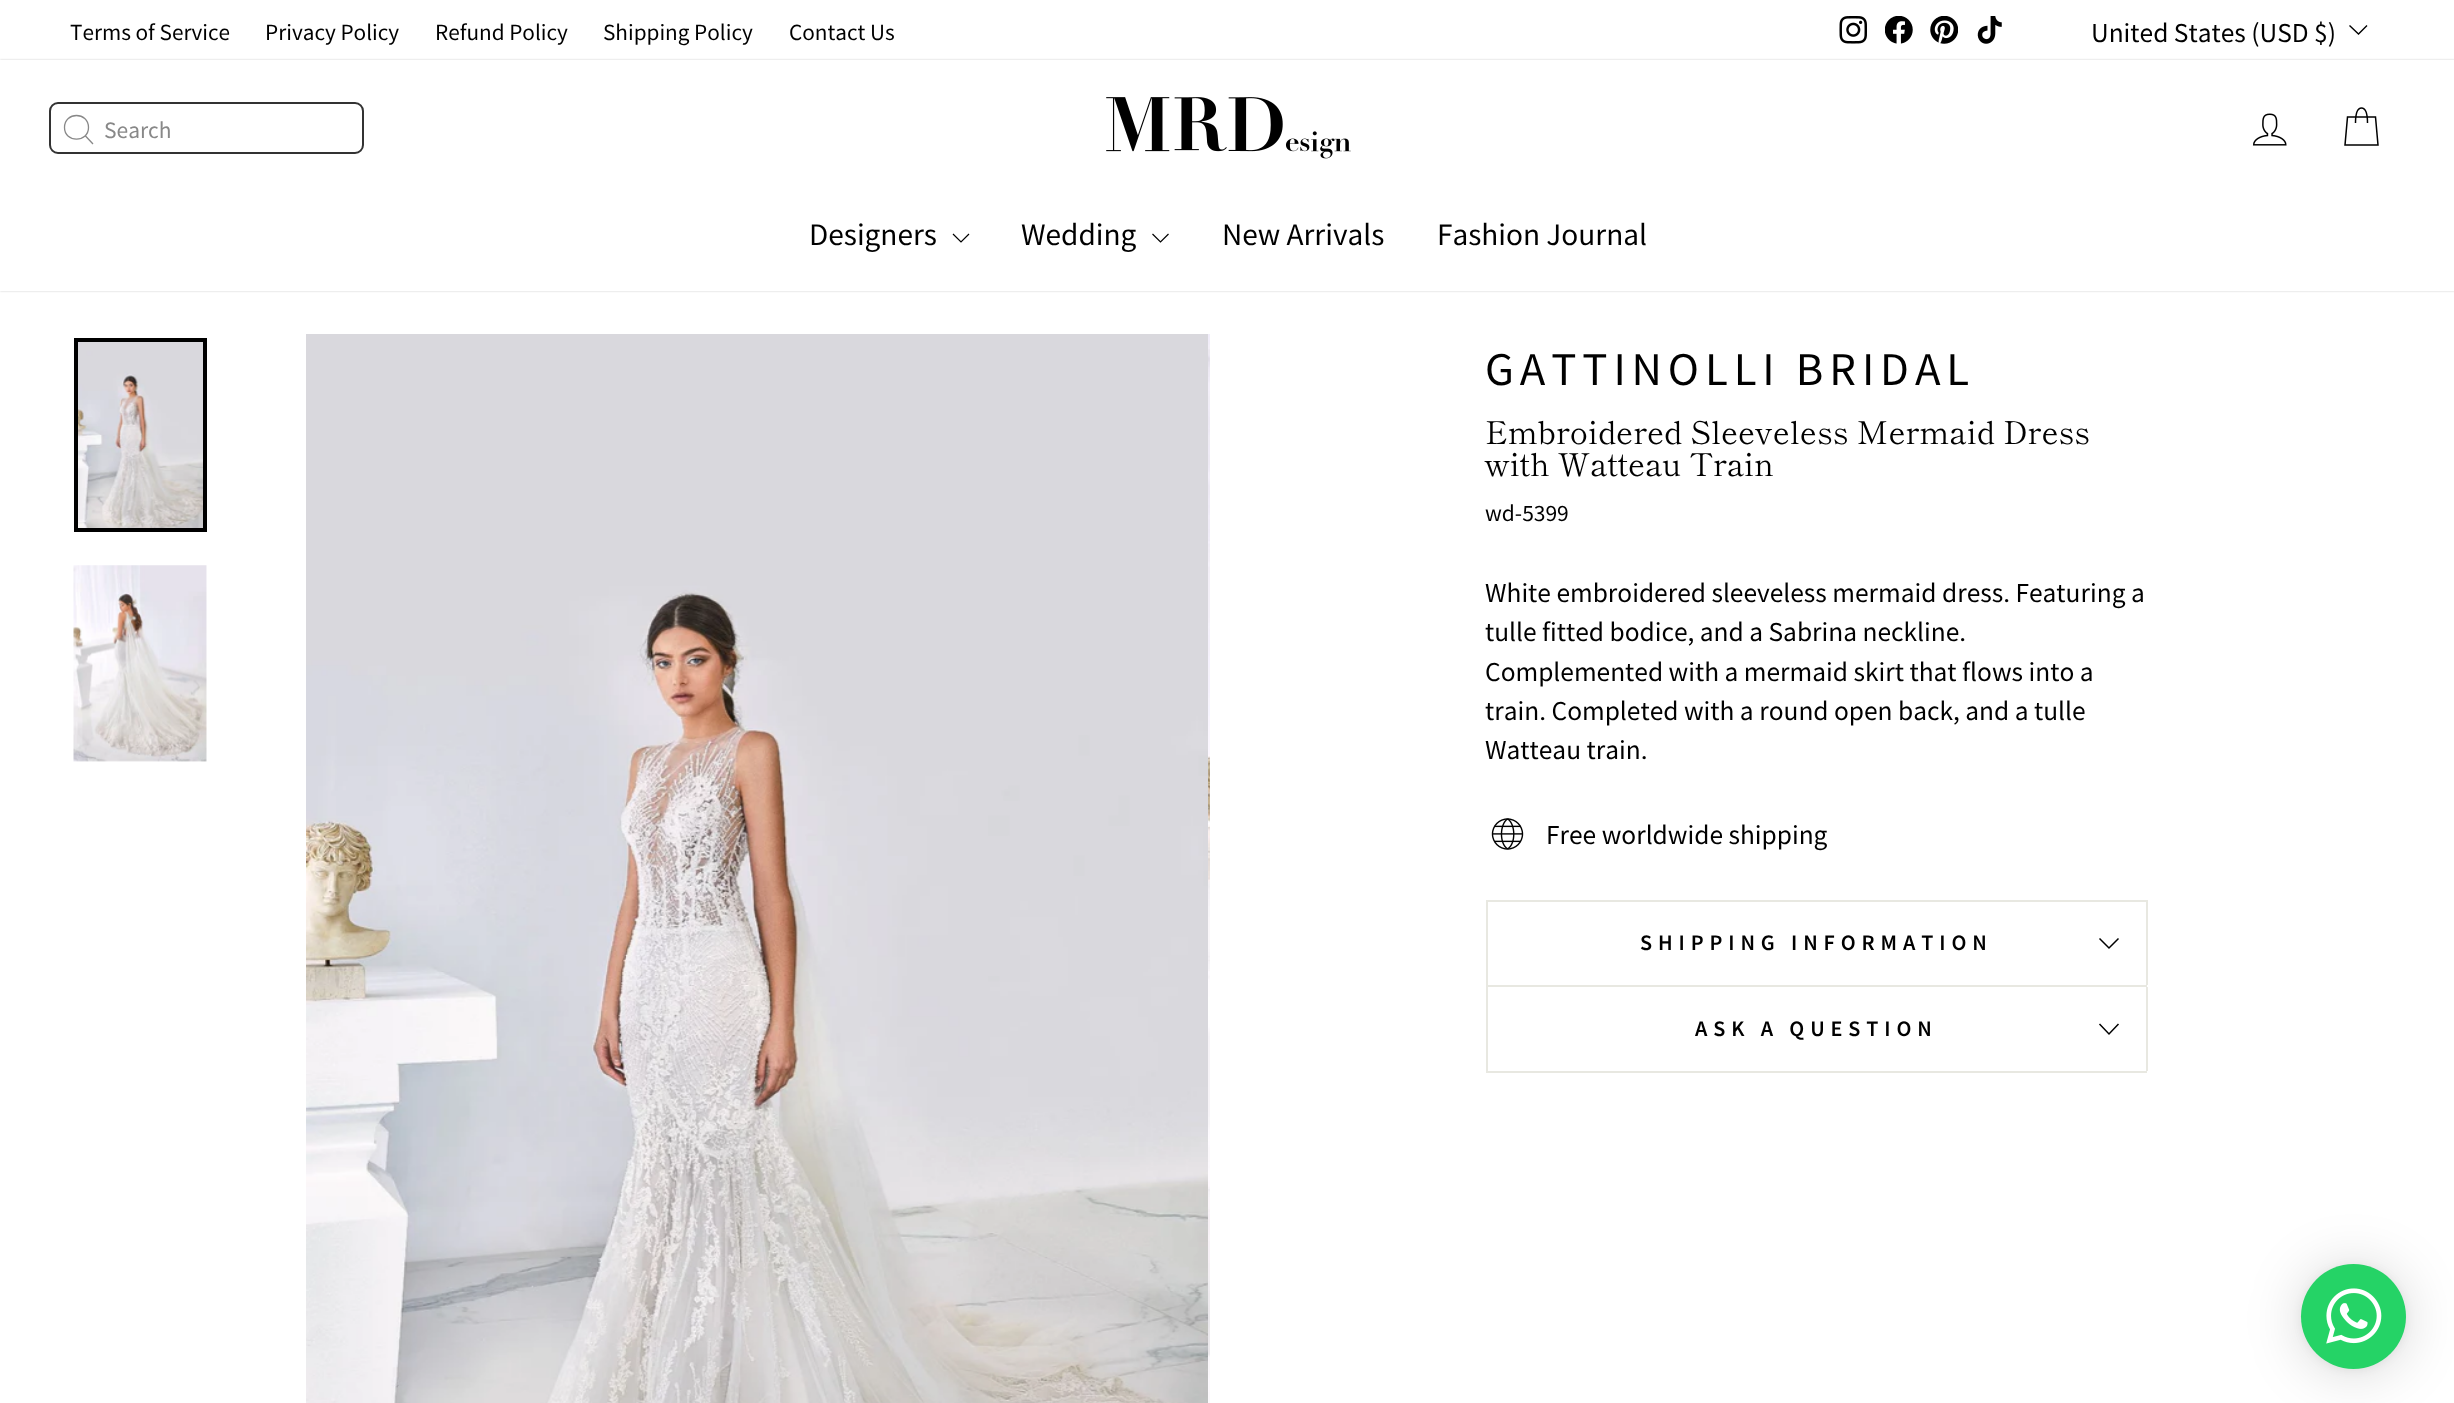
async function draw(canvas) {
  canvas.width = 2454
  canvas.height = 1403
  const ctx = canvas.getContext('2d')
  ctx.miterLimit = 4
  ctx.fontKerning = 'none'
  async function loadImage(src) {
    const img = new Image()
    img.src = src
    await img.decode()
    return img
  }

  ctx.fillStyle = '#fff'
  ctx.fillRect(0, 0, 2454, 1403)
  ctx.font = '20.75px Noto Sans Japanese'
  ctx.fillStyle = '#000'
  ctx.fillText('Terms of Service', 70, 40)
  ctx.fillText('Privacy Policy', 265, 40)
  ctx.fillText('Refund Policy', 435, 40)
  ctx.fillText('Shipping Policy', 603, 40)
  ctx.fillText('Contact Us', 789, 40)
  ctx.drawImage(await loadImage('image0.png'), 1839, 16, 28, 28)
  ctx.drawImage(await loadImage('image1.png'), 1885, 16, 28, 28)
  ctx.drawImage(await loadImage('image2.png'), 1930, 16, 28, 28)
  ctx.drawImage(await loadImage('image3.png'), 1977, 16, 25, 28)
  ctx.font = '24.5px Noto Sans Japanese'
  ctx.fillText('United States (USD $)', 2091, 42)
  ctx.beginPath()
  ctx.moveTo(2349.5, 25.5)
  ctx.lineTo(2358.5, 34)
  ctx.lineTo(2367, 25.5)
  ctx.strokeStyle = '#000'
  ctx.lineWidth = 1.4
  ctx.stroke()
  ctx.fillStyle = '#00000033'
  ctx.filter = 'blur(1px)'
  ctx.beginPath()
  ctx.rect(0, 60, 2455, 231)
  ctx.fill()
  ctx.filter = 'none'
  ctx.fillStyle = '#fff'
  ctx.fillRect(0, 60, 2454, 231)
  ctx.beginPath()
  ctx.roundRect(50, 103, 313, 50, 8)
  ctx.strokeStyle = '#333'
  ctx.lineWidth = 2
  ctx.stroke()
  ctx.beginPath()
  ctx.moveTo(88.5, 127.5)
  ctx.bezierCurveTo(88.5, 143, 64.5, 143, 64.5, 127.5)
  ctx.bezierCurveTo(64.5, 111.5, 88.5, 111.5, 88.5, 127.5)
  ctx.closePath()
  ctx.moveTo(93, 144)
  ctx.lineTo(85.5, 136)
  ctx.strokeStyle = '#888'
  ctx.lineWidth = 1.3
  ctx.stroke()
  ctx.font = '21px Noto Sans Japanese'
  ctx.fillStyle = '#888'
  ctx.fillText('Search', 104, 138)
  ctx.drawImage(await loadImage('image4.png'), 1106, 97, 245, 62)
  ctx.drawImage(await loadImage('image5.png'), 2252, 113, 35, 33)
  ctx.beginPath()
  ctx.moveTo(2355.5, 123)
  ctx.bezierCurveTo(2355.5, 111, 2358, 108, 2361.5, 108)
  ctx.bezierCurveTo(2365, 108, 2367.5, 111, 2367.5, 123)
  ctx.moveTo(2347.5, 117)
  ctx.lineTo(2375.5, 117)
  ctx.lineTo(2378, 145)
  ctx.lineTo(2345, 145)
  ctx.closePath()
  ctx.strokeStyle = '#000'
  ctx.lineWidth = 1.5
  ctx.stroke()
  ctx.font = '28px Noto Sans Japanese'
  ctx.fillStyle = '#000'
  ctx.fillText('Designers', 809, 245)
  ctx.beginPath()
  ctx.moveTo(953, 234)
  ctx.lineTo(961, 242)
  ctx.lineTo(969, 234)
  ctx.lineWidth = 1.2
  ctx.stroke()
  ctx.fillText('Wedding', 1021, 245)
  ctx.beginPath()
  ctx.moveTo(1152.5, 234)
  ctx.lineTo(1160.5, 242)
  ctx.lineTo(1168.5, 234)
  ctx.stroke()
  ctx.fillText('New Arrivals', 1222, 245)
  ctx.fillText('Fashion Journal', 1437, 245)
  ctx.drawImage(await loadImage('image6.png'), 78, 342, 125, 186)
  ctx.lineWidth = 4
  ctx.strokeRect(76, 340, 129, 190)
  ctx.drawImage(await loadImage('image7.png'), 73, 565, 134, 197)
  ctx.drawImage(await loadImage('image8.png'), 306, 334, 902, 1069)
  ctx.drawImage(await loadImage('image9.png'), 1208, 334, 2, 1069)
  ctx.letterSpacing = '5.9px'
  ctx.font = '42px Noto Sans Japanese'
  ctx.fillText('GATTINOLLI BRIDAL', 1485, 385)
  ctx.letterSpacing = '0px'
  ctx.font = '31.5px Shippori Mincho'
  ctx.fillText('Embroidered Sleeveless Mermaid Dress', 1485, 444)
  ctx.fillText('with Watteau Train', 1485, 476)
  ctx.font = '21px Noto Sans Japanese'
  ctx.fillText('wd-5399', 1485, 521)
  ctx.font = '24.5px Noto Sans Japanese'
  ctx.fillText('White embroidered sleeveless mermaid dress. Featuring a', 1485, 602)
  ctx.fillText('tulle fitted bodice, and a Sabrina neckline.', 1485, 641)
  ctx.fillText('Complemented with a mermaid skirt that flows into a', 1485, 681)
  ctx.fillText('train. Completed with a round open back, and a tulle', 1485, 720)
  ctx.fillText('Watteau train.', 1485, 759)
  ctx.drawImage(await loadImage('image10.png'), 1491, 818, 33, 32)
  ctx.fillText('Free worldwide shipping', 1546, 844)
  ctx.fillStyle = '#e8e8e1'
  ctx.fillRect(1486, 985, 661, 2)
  ctx.fillRect(1486, 900, 661, 2)
  ctx.fillRect(2146, 900, 2, 85)
  ctx.fillRect(1486, 900, 2, 85)
  ctx.letterSpacing = '5.9px'
  ctx.font = '600 19.6px Noto Sans Japanese'
  ctx.fillStyle = '#000'
  ctx.fillText('SHIPPING INFORMATION', 1640, 950)
  ctx.beginPath()
  ctx.moveTo(2099.5, 938.5)
  ctx.lineTo(2109, 948)
  ctx.lineTo(2118.5, 938.5)
  ctx.lineWidth = 1.5
  ctx.stroke()
  ctx.fillStyle = '#e8e8e1'
  ctx.fillRect(1486, 1071, 661, 2)
  ctx.fillRect(2146, 987, 2, 84)
  ctx.fillRect(1486, 987, 2, 84)
  ctx.fillStyle = '#000'
  ctx.fillText('ASK A QUESTION', 1695, 1036)
  ctx.beginPath()
  ctx.moveTo(2099.5, 1024)
  ctx.lineTo(2109, 1034)
  ctx.lineTo(2118.5, 1024)
  ctx.stroke()
  ctx.fillStyle = '#00000029'
  ctx.filter = 'blur(28px)'
  ctx.beginPath()
  ctx.roundRect(2301, 1267, 105, 105, 52.5)
  ctx.fill()
  ctx.filter = 'none'
  ctx.fillStyle = '#0000000f'
  ctx.filter = 'blur(5px)'
  ctx.beginPath()
  ctx.roundRect(2301, 1265, 105, 105, 52.5)
  ctx.fill()
  ctx.filter = 'none'
  ctx.fillStyle = '#25d366'
  ctx.beginPath()
  ctx.arc(2353.5, 1316.5, 52.5, 0, 2 * Math.PI)
  ctx.fill()
  ctx.drawImage(await loadImage('image11.png'), 2326, 1288, 56, 56)
}

draw(document.querySelector('canvas'))
